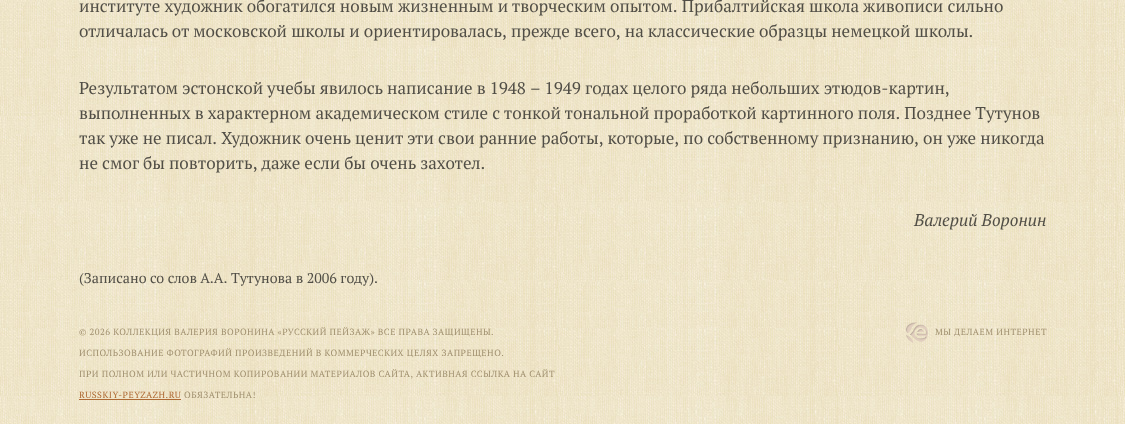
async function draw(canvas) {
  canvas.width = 1125
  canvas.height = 424
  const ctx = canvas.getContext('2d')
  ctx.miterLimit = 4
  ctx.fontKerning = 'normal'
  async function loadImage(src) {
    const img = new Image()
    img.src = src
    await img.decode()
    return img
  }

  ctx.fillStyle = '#fff'
  ctx.fillRect(0, 0, 1125, 424)
  ctx.drawImage(await loadImage('image0.png'), 0, 0, 1125, 424)
  ctx.font = '17px PT Serif'
  ctx.fillStyle = '#514e46'
  ctx.fillText('институте художник обогатился новым жизненным и творческим опытом. Прибалтийская школа живописи сильно', 79, 12)
  ctx.fillText('отличалась от московской школы и ориентировалась, прежде всего, на классические образцы немецкой школы.', 79, 37)
  ctx.wordSpacing = '-0.1px'
  ctx.fillText('Результатом эстонской учебы явилось написание в 1948 – 1949 годах целого ряда небольших этюдов-картин,', 79, 94)
  ctx.wordSpacing = '0px'
  ctx.fillText('выполненных в характерном академическом стиле с тонкой тональной проработкой картинного поля. Позднее Тутунов', 79, 119)
  ctx.fillText('так уже не писал. Художник очень ценит эти свои ранние работы, которые, по собственному признанию, он уже никогда', 79, 144)
  ctx.fillText('не смог бы повторить, даже если бы очень захотел.', 79, 169)
  ctx.font = 'italic 17px PT Serif'
  ctx.fillText('Валерий Воронин', 914, 226)
  ctx.font = '14.2px PT Serif'
  ctx.fillText('(Записано со слов А.А. Тутунова в 2006 году).', 79, 283)
  ctx.letterSpacing = '0.5px'
  ctx.font = '9px PT Serif'
  ctx.fillStyle = '#a19170'
  ctx.fillText('© 2026 КОЛЛЕКЦИЯ ВАЛЕРИЯ ВОРОНИНА «РУССКИЙ ПЕЙЗАЖ» ВСЕ ПРАВА ЗАЩИЩЕНЫ.', 79, 335)
  ctx.fillText('ИСПОЛЬЗОВАНИЕ ФОТОГРАФИЙ ПРОИЗВЕДЕНИЙ В КОММЕРЧЕСКИХ ЦЕЛЯХ ЗАПРЕЩЕНО.', 79, 356)
  ctx.fillText('ПРИ ПОЛНОМ ИЛИ ЧАСТИЧНОМ КОПИРОВАНИИ МАТЕРИАЛОВ САЙТА, АКТИВНАЯ ССЫЛКА НА САЙТ', 79, 377)
  ctx.fillStyle = '#ae6a34'
  ctx.fillText('RUSSKIY-PEYZAZH.RU', 79, 398)
  ctx.fillRect(79, 399, 102, 1)
  ctx.fillStyle = '#a19170'
  ctx.fillText('ОБЯЗАТЕЛЬНА!', 184, 398)
  ctx.drawImage(await loadImage('image1.png'), 906, 322, 22, 21)
  ctx.fillText('МЫ ДЕЛАЕМ ИНТЕРНЕТ', 935, 335)
}

draw(document.querySelector('canvas'))
